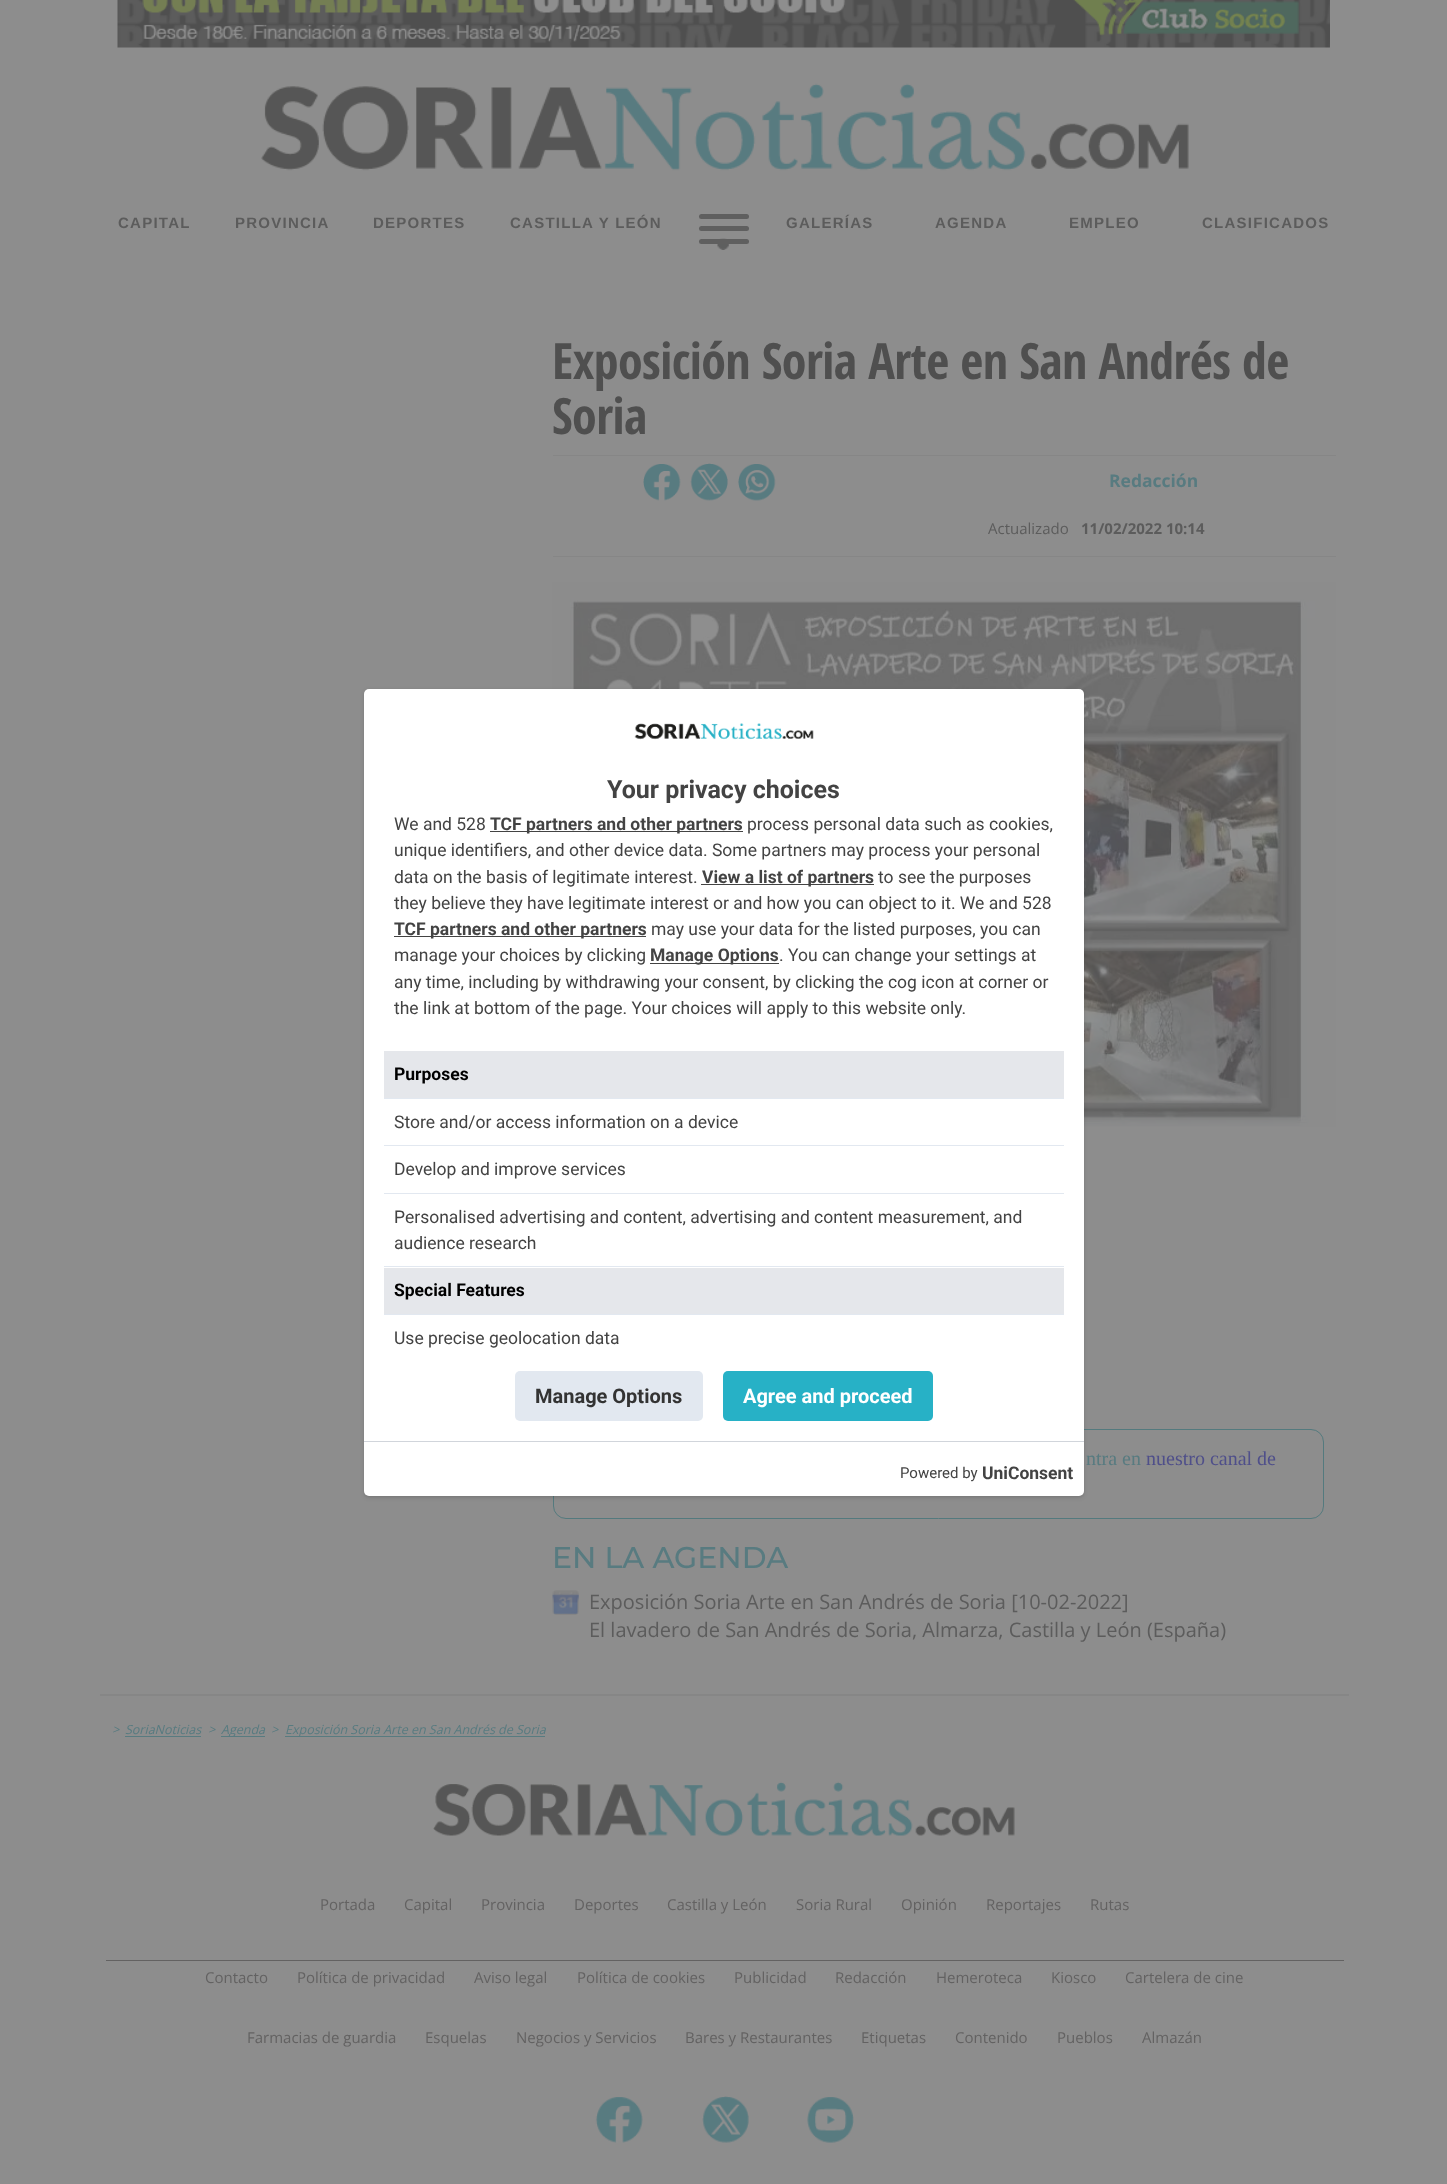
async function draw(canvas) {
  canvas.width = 1447
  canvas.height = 2184
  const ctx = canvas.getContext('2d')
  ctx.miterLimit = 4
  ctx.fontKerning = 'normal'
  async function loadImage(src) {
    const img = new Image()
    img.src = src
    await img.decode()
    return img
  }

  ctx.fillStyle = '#8d8d8d'
  ctx.fillRect(0, 0, 1447, 2184)
  ctx.drawImage(await loadImage('image0.png'), 117, 0, 1213, 48)
  ctx.drawImage(await loadImage('image1.png'), 261, 83, 928, 88)
  ctx.letterSpacing = '1.25px'
  ctx.font = 'bold 15px Liberation Sans'
  ctx.fillStyle = '#5c5c5c'
  ctx.fillText('CAPITAL', 118, 228)
  ctx.fillText('PROVINCIA', 235, 228)
  ctx.fillText('DEPORTES', 373, 228)
  ctx.fillText('CASTILLA Y LEÓN', 510, 228)
  ctx.fillStyle = '#5f5f5f'
  ctx.beginPath()
  ctx.roundRect(699, 226, 50, 5, 2.5)
  ctx.fill()
  ctx.beginPath()
  ctx.roundRect(699, 214, 50, 5, 2.5)
  ctx.fill()
  ctx.drawImage(await loadImage('image2.png'), 717, 238, 12, 12)
  ctx.beginPath()
  ctx.roundRect(699, 239, 50, 5, 2.5)
  ctx.fill()
  ctx.fillStyle = '#5c5c5c'
  ctx.fillText('GALERÍAS', 786, 228)
  ctx.fillText('AGENDA', 935, 228)
  ctx.fillText('EMPLEO', 1069, 228)
  ctx.fillText('CLASIFICADOS', 1202, 228)
  ctx.fillStyle = '#868686'
  ctx.fillRect(100, 1694, 1249, 2)
  ctx.letterSpacing = '-0.6px'
  ctx.font = 'bold 50px Open Sans Condensed'
  ctx.fillStyle = '#4f4f4f'
  ctx.fillText('Exposición Soria Arte en San Andrés de', 552, 379)
  ctx.fillText('Soria', 552, 434)
  ctx.fillStyle = '#868686'
  ctx.fillRect(553, 455, 783, 1)
  ctx.fillRect(553, 556, 783, 1)
  ctx.drawImage(await loadImage('image3.png'), 643, 464, 38, 37)
  ctx.drawImage(await loadImage('image4.png'), 690, 463, 38, 38)
  ctx.drawImage(await loadImage('image5.png'), 738, 464, 38, 37)
  ctx.letterSpacing = '0px'
  ctx.font = 'bold 17.5px Open Sans'
  ctx.fillStyle = '#587b80'
  ctx.fillText('Redacción', 1109, 487)
  ctx.font = '15px Open Sans'
  ctx.fillStyle = '#5c5c5c'
  ctx.fillText('Actualizado', 988, 534)
  ctx.font = 'bold 15px Open Sans'
  ctx.fillText('11/02/2022 10:14', 1081, 534)
  ctx.drawImage(await loadImage('image6.png'), 552, 582, 784, 545)
  ctx.beginPath()
  ctx.roundRect(553.5, 1429.5, 770, 89, 12.5)
  ctx.strokeStyle = '#547a7e'
  ctx.stroke()
  ctx.font = '20px Liberation Serif'
  ctx.fillStyle = '#587b80'
  ctx.fillText('ntra en', 1086, 1465)
  ctx.fillStyle = '#4f4f8a'
  ctx.fillText('nuestro canal de', 1146, 1465)
  ctx.font = '500 30px Montserrat'
  ctx.fillStyle = '#587b80'
  ctx.fillText('EN LA AGENDA', 552, 1568)
  ctx.drawImage(await loadImage('image7.png'), 552, 1590, 27, 25)
  ctx.font = '20px Open Sans'
  ctx.fillStyle = '#5c5c5c'
  ctx.fillText('Exposición Soria Arte en San Andrés de Soria [10-02-2022]', 589, 1609)
  ctx.fillText('El lavadero de San Andrés de Soria, Almarza, Castilla y León (España)', 589, 1637)
  ctx.font = 'italic 12.5px Open Sans'
  ctx.fillStyle = '#587b80'
  ctx.fillText('>', 112, 1734)
  ctx.fillText('SoriaNoticias', 125, 1734)
  ctx.fillRect(125, 1736, 76, 1)
  ctx.fillText('>', 208, 1734)
  ctx.fillRect(221, 1736, 44, 1)
  ctx.fillText('Agenda', 221, 1734)
  ctx.fillText('>', 271, 1734)
  ctx.fillRect(285, 1736, 260, 1)
  ctx.fillText('Exposición Soria Arte en San Andrés de Soria', 285, 1734)
  ctx.drawImage(await loadImage('image8.png'), 433, 1781, 582, 55)
  ctx.font = '15px Open Sans'
  ctx.fillStyle = '#636262'
  ctx.fillText('Portada', 320, 1910)
  ctx.fillText('Capital', 404, 1910)
  ctx.fillText('Provincia', 481, 1910)
  ctx.fillText('Deportes', 574, 1910)
  ctx.fillText('Castilla y León', 667, 1910)
  ctx.fillText('Soria Rural', 796, 1910)
  ctx.fillText('Opinión', 901, 1910)
  ctx.fillText('Reportajes', 986, 1910)
  ctx.fillText('Rutas', 1090, 1910)
  ctx.fillRect(106, 1960, 1238, 1)
  ctx.fillText('Contacto', 205, 1983)
  ctx.fillText('Política de privacidad', 297, 1983)
  ctx.fillText('Aviso legal', 474, 1983)
  ctx.fillText('Política de cookies', 577, 1983)
  ctx.fillText('Publicidad', 734, 1983)
  ctx.fillText('Redacción', 835, 1983)
  ctx.fillText('Hemeroteca', 936, 1983)
  ctx.fillText('Kiosco', 1051, 1983)
  ctx.fillText('Cartelera de cine', 1125, 1983)
  ctx.fillText('Farmacias de guardia', 247, 2043)
  ctx.fillText('Esquelas', 425, 2043)
  ctx.fillText('Negocios y Servicios', 516, 2043)
  ctx.fillText('Bares y Restaurantes', 685, 2043)
  ctx.fillText('Etiquetas', 861, 2043)
  ctx.fillText('Contenido', 955, 2043)
  ctx.fillText('Pueblos', 1057, 2043)
  ctx.fillText('Almazán', 1142, 2043)
  ctx.drawImage(await loadImage('image9.png'), 595, 2097, 48, 46)
  ctx.drawImage(await loadImage('image10.png'), 702, 2096, 47, 47)
  ctx.drawImage(await loadImage('image11.png'), 807, 2097, 47, 46)
  ctx.fillStyle = '#0000001a'
  ctx.filter = 'blur(1px)'
  ctx.beginPath()
  ctx.roundRect(365, 691, 718, 805, 4)
  ctx.fill()
  ctx.filter = 'none'
  ctx.filter = 'blur(2px)'
  ctx.beginPath()
  ctx.roundRect(364, 690, 720, 808, 5)
  ctx.fill()
  ctx.filter = 'none'
  ctx.fillStyle = '#fff'
  ctx.beginPath()
  ctx.roundRect(364, 689, 720, 807, 5)
  ctx.fill()
  ctx.drawImage(await loadImage('image12.png'), 634, 723, 180, 17)
  ctx.font = 'bold 25px Roboto'
  ctx.fillStyle = '#434343'
  ctx.fillText('Your privacy choices', 607, 798)
  ctx.font = '17.5px Roboto'
  ctx.fillText('We and 528', 394, 830)
  ctx.fillRect(490, 831, 253, 1)
  ctx.font = 'bold 17.5px Roboto'
  ctx.fillText('TCF partners and other partners', 490, 830)
  ctx.font = '17.5px Roboto'
  ctx.fillText('process personal data such as cookies,', 747, 830)
  ctx.fillText('unique identifiers, and other device data. Some partners may process your personal', 394, 856)
  ctx.fillText('data on the basis of legitimate interest.', 394, 883)
  ctx.fillRect(701, 884, 173, 1)
  ctx.font = 'bold 17.5px Roboto'
  ctx.fillText('View a list of partners', 702, 883)
  ctx.font = '17.5px Roboto'
  ctx.fillText('to see the purposes', 878, 883)
  ctx.fillText('they believe they have legitimate interest or and how you can object to it. We and 528', 394, 909)
  ctx.fillRect(394, 936, 252, 1)
  ctx.font = 'bold 17.5px Roboto'
  ctx.fillText('TCF partners and other partners', 394, 935)
  ctx.font = '17.5px Roboto'
  ctx.fillText('may use your data for the listed purposes, you can', 651, 935)
  ctx.fillText('manage your choices by clicking', 394, 961)
  ctx.fillRect(650, 963, 129, 1)
  ctx.font = 'bold 17.5px Roboto'
  ctx.fillText('Manage Options', 650, 961)
  ctx.font = '17.5px Roboto'
  ctx.fillText('. You can change your settings at', 779, 961)
  ctx.fillText('any time, including by withdrawing your consent, by clicking the cog icon at corner or', 394, 988)
  ctx.fillText('the link at bottom of the page. Your choices will apply to this website only.', 394, 1014)
  ctx.fillStyle = '#e5e7eb'
  ctx.fillRect(384, 1051, 680, 47)
  ctx.fillStyle = '#e2e8f0'
  ctx.fillRect(384, 1098, 680, 1)
  ctx.font = 'bold 17.5px Roboto'
  ctx.fillStyle = '#000'
  ctx.fillText('Purposes', 394, 1080)
  ctx.fillStyle = '#e2e8f0'
  ctx.fillRect(384, 1145, 680, 1)
  ctx.font = '17.5px Roboto'
  ctx.fillStyle = '#434343'
  ctx.fillText('Store and/or access information on a device', 394, 1128)
  ctx.fillStyle = '#e2e8f0'
  ctx.fillRect(384, 1193, 680, 1)
  ctx.fillStyle = '#434343'
  ctx.fillText('Develop and improve services', 394, 1175)
  ctx.fillStyle = '#e2e8f0'
  ctx.fillRect(384, 1266, 680, 1)
  ctx.fillStyle = '#434343'
  ctx.fillText('Personalised advertising and content, advertising and content measurement, and', 394, 1223)
  ctx.fillText('audience research', 394, 1249)
  ctx.fillStyle = '#e5e7eb'
  ctx.fillRect(384, 1268, 680, 46)
  ctx.fillStyle = '#e2e8f0'
  ctx.fillRect(384, 1314, 680, 1)
  ctx.font = 'bold 17.5px Roboto'
  ctx.fillStyle = '#000'
  ctx.fillText('Special Features', 394, 1296)
  ctx.font = '17.5px Roboto'
  ctx.fillStyle = '#434343'
  ctx.fillText('Use precise geolocation data', 394, 1344)
  ctx.fillStyle = '#e2e8f0'
  ctx.beginPath()
  ctx.roundRect(515, 1371, 188, 50, 5)
  ctx.fill()
  ctx.font = 'bold 20px Roboto'
  ctx.fillStyle = '#333'
  ctx.fillText('Manage Options', 535, 1403)
  ctx.fillStyle = '#27b1c6'
  ctx.beginPath()
  ctx.roundRect(723, 1371, 210, 50, 5)
  ctx.fill()
  ctx.fillStyle = '#fff'
  ctx.fillText('Agree and proceed', 743, 1403)
  ctx.fillStyle = '#d1d5db'
  ctx.fillRect(364, 1441, 720, 1)
  ctx.font = '15px Roboto'
  ctx.fillStyle = '#434343'
  ctx.fillText('Powered by', 900, 1478)
  ctx.font = 'bold 17.5px Roboto'
  ctx.fillText('UniConsent', 982, 1479)
}

draw(document.querySelector('canvas'))
